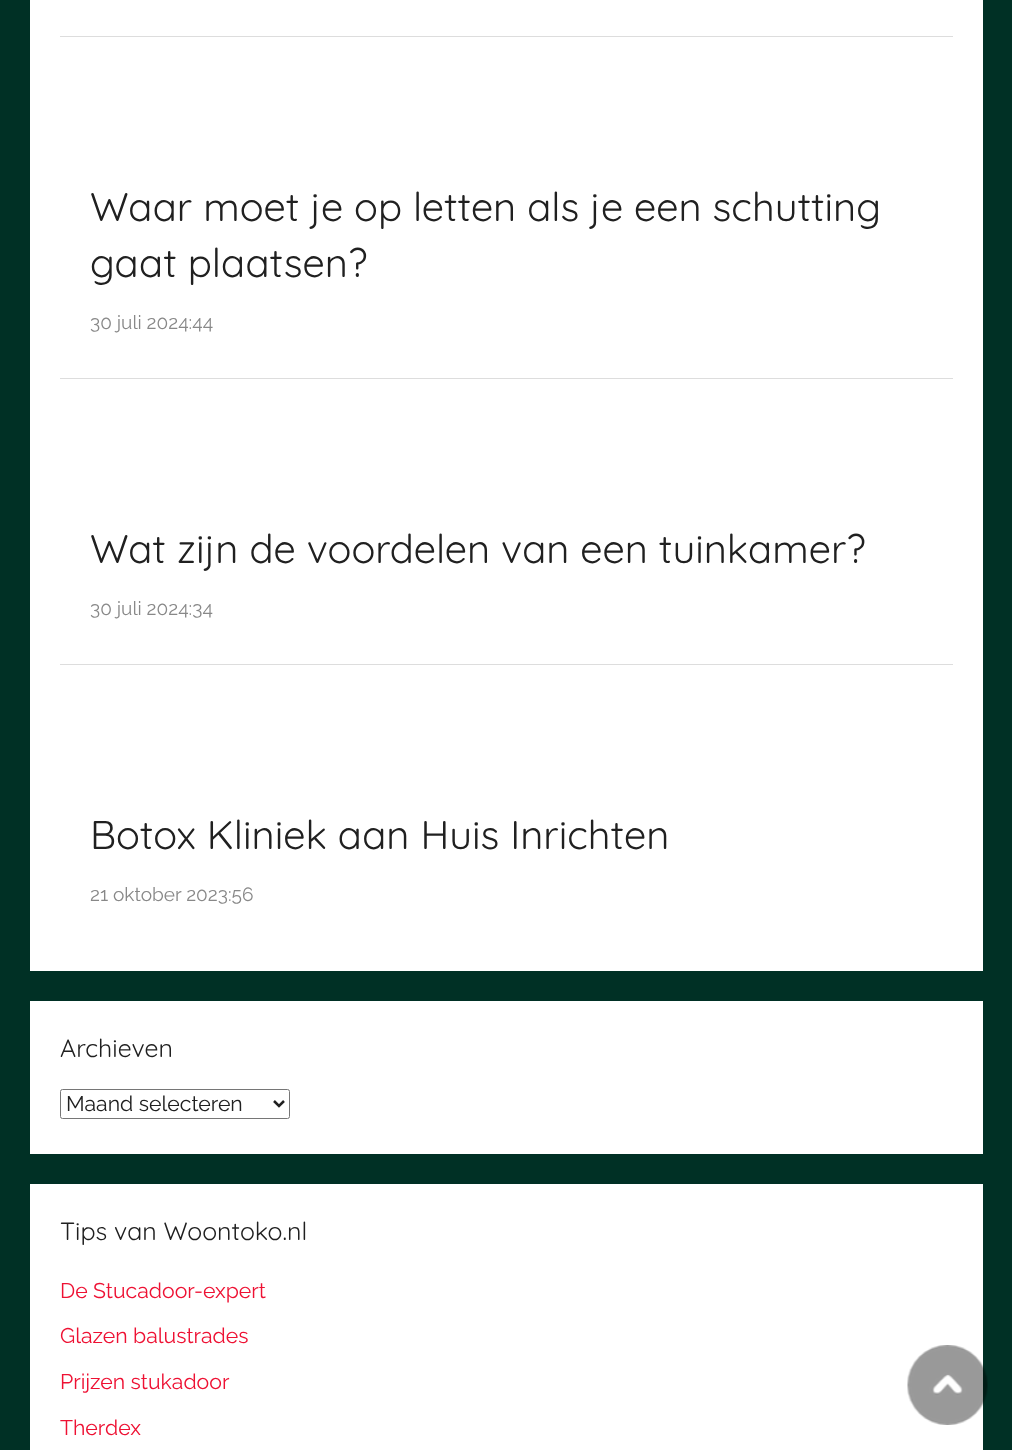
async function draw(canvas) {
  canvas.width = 1012
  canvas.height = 1450
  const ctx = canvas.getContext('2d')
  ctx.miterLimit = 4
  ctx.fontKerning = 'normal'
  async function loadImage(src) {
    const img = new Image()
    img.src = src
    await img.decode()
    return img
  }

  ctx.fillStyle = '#003025'
  ctx.fillRect(0, 0, 1012, 1450)
  ctx.fillStyle = '#fff'
  ctx.fillRect(30, 0, 953, 971)
  ctx.fillStyle = '#ddd'
  ctx.fillRect(60, 36, 893, 1)
  ctx.fillRect(60, 378, 893, 1)
  ctx.font = '300 40px Quicksand'
  ctx.fillStyle = '#202020'
  ctx.fillText('Waar moet je op letten als je een schutting', 90, 221)
  ctx.fillText('gaat plaatsen?', 90, 277)
  ctx.font = '100 19.1px Raleway'
  ctx.fillStyle = '#888'
  ctx.fillText('30 juli 2024:44', 90, 329)
  ctx.fillStyle = '#ddd'
  ctx.fillRect(60, 664, 893, 1)
  ctx.font = '300 40px Quicksand'
  ctx.fillStyle = '#202020'
  ctx.fillText('Wat zijn de voordelen van een tuinkamer?', 90, 563)
  ctx.font = '100 19.1px Raleway'
  ctx.fillStyle = '#888'
  ctx.fillText('30 juli 2024:34', 90, 615)
  ctx.font = '300 40px Quicksand'
  ctx.fillStyle = '#202020'
  ctx.fillText('Botox Kliniek aan Huis Inrichten', 90, 849)
  ctx.font = '100 19.1px Raleway'
  ctx.fillStyle = '#888'
  ctx.fillText('21 oktober 2023:56', 90, 901)
  ctx.fillStyle = '#fff'
  ctx.fillRect(30, 1001, 953, 153)
  ctx.font = '300 25px Quicksand'
  ctx.fillStyle = '#202020'
  ctx.fillText('Archieven', 60, 1057)
  ctx.beginPath()
  ctx.roundRect(60.5, 1089.5, 229, 29, 2)
  ctx.strokeStyle = '#767676'
  ctx.stroke()
  ctx.beginPath()
  ctx.moveTo(274, 1101)
  ctx.lineTo(279, 1106)
  ctx.lineTo(284, 1101)
  ctx.strokeStyle = '#202020'
  ctx.lineWidth = 2.5
  ctx.stroke()
  ctx.font = '100 21.25px Raleway'
  ctx.fillText('Maand selecteren', 66, 1111)
  ctx.fillStyle = '#fff'
  ctx.fillRect(30, 1184, 953, 266)
  ctx.font = '300 25px Quicksand'
  ctx.fillStyle = '#202020'
  ctx.fillText('Tips van Woontoko.nl', 60, 1240)
  ctx.font = '100 21.25px Raleway'
  ctx.fillStyle = '#e13'
  ctx.fillText('De Stucadoor-expert', 60, 1298)
  ctx.fillText('Glazen balustrades', 60, 1343)
  ctx.fillText('Prijzen stukadoor', 60, 1389)
  ctx.fillText('Therdex', 60, 1435)
  ctx.drawImage(await loadImage('image0.png'), 907, 1345, 81, 80)
}

draw(document.querySelector('canvas'))
